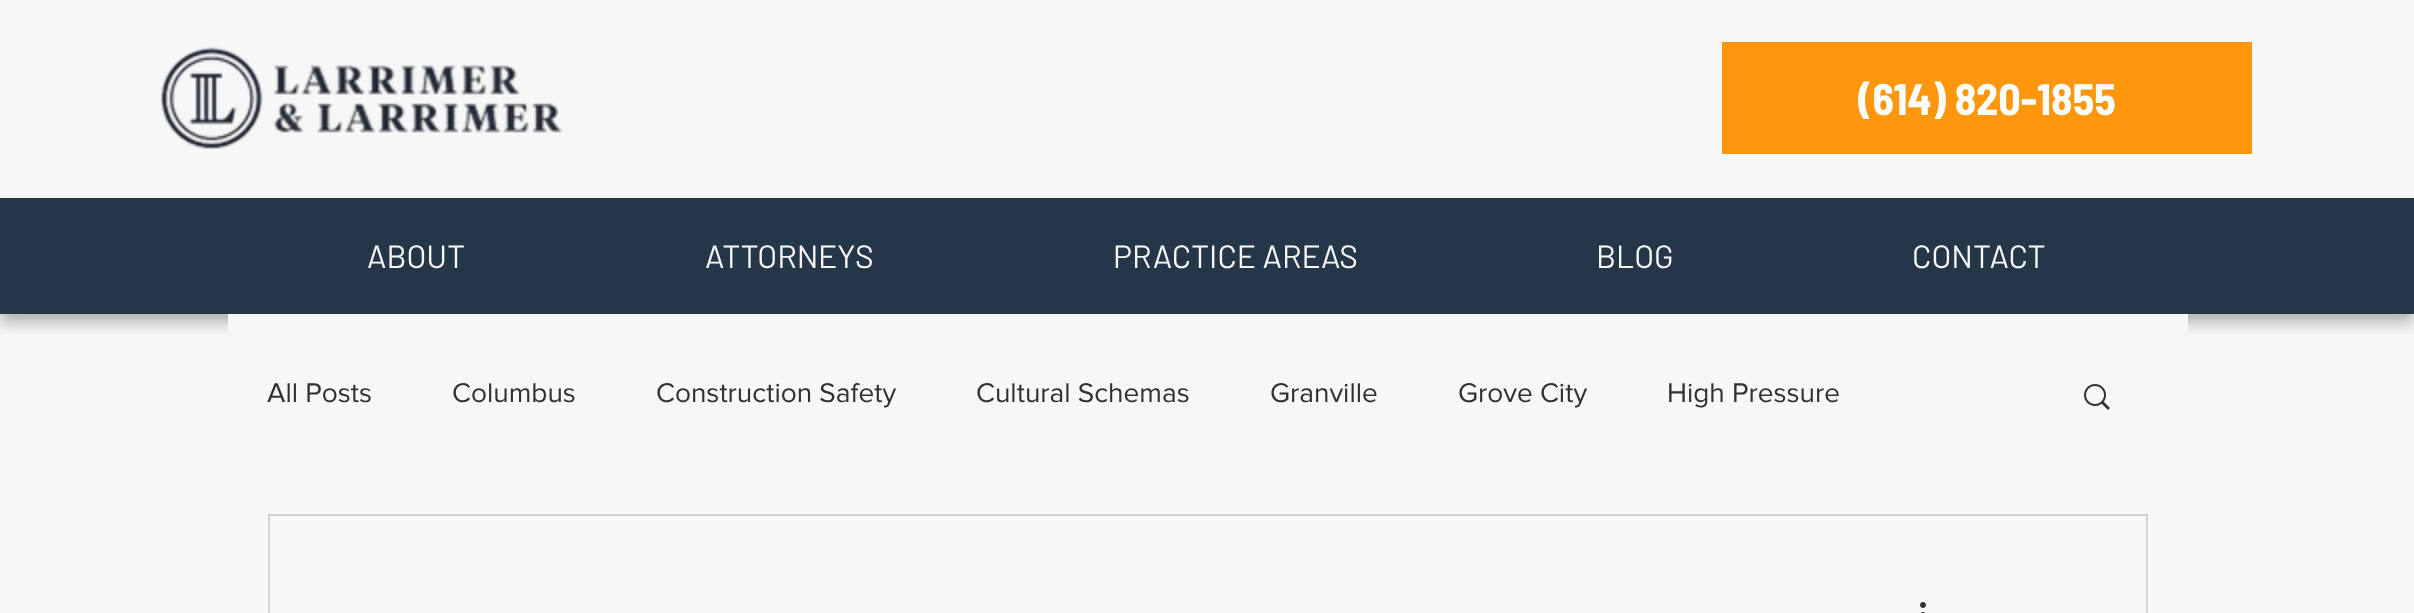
async function draw(canvas) {
  canvas.width = 2414
  canvas.height = 613
  const ctx = canvas.getContext('2d')
  ctx.miterLimit = 4
  ctx.fontKerning = 'normal'
  async function loadImage(src) {
    const img = new Image()
    img.src = src
    await img.decode()
    return img
  }

  ctx.fillStyle = '#f7f7f7'
  ctx.fillRect(0, 0, 2414, 613)
  ctx.save()
  ctx.beginPath()
  ctx.rect(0, 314, 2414, 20)
  ctx.clip()
  ctx.fillStyle = '#0000004d'
  ctx.filter = 'blur(8px)'
  ctx.beginPath()
  ctx.rect(0, 8, 2414, 314)
  ctx.fill()
  ctx.filter = 'none'
  ctx.restore()
  ctx.drawImage(await loadImage('image0.png'), 160, 47, 403, 103)
  ctx.fillStyle = '#ff970e'
  ctx.fillRect(1722, 42, 530, 112)
  ctx.font = 'bold 44px Barlow Semi Condensed'
  ctx.fillStyle = '#fff'
  ctx.fillText('(614) 820-1855', 1858, 115)
  ctx.fillStyle = '#263649'
  ctx.fillRect(0, 198, 2414, 116)
  ctx.font = '32px Barlow'
  ctx.fillStyle = '#f7f7f7'
  ctx.fillText('ABOUT', 367, 268)
  ctx.fillText('ATTORNEYS', 705, 268)
  ctx.fillText('PRACTICE AREAS', 1113, 268)
  ctx.fillText('BLOG', 1596, 268)
  ctx.fillText('CONTACT', 1912, 268)
  ctx.fillRect(228, 314, 1960, 22)
  ctx.font = '28px "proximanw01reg"'
  ctx.fillStyle = '#313131'
  ctx.fillText('All Posts', 267, 402)
  ctx.fillText('Columbus', 452, 402)
  ctx.fillText('Construction Safety', 656, 402)
  ctx.fillText('Cultural Schemas', 976, 402)
  ctx.fillText('Granville', 1270, 402)
  ctx.fillText('Grove City', 1458, 402)
  ctx.fillText('High Pressure', 1667, 402)
  ctx.drawImage(await loadImage('image1.png'), 2084, 384, 26, 26)
  ctx.strokeStyle = '#d2d2d2'
  ctx.lineWidth = 2
  ctx.strokeRect(269, 515, 1878, 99)
  ctx.drawImage(await loadImage('image2.png'), 1920, 602, 6, 11)
}

draw(document.querySelector('canvas'))
